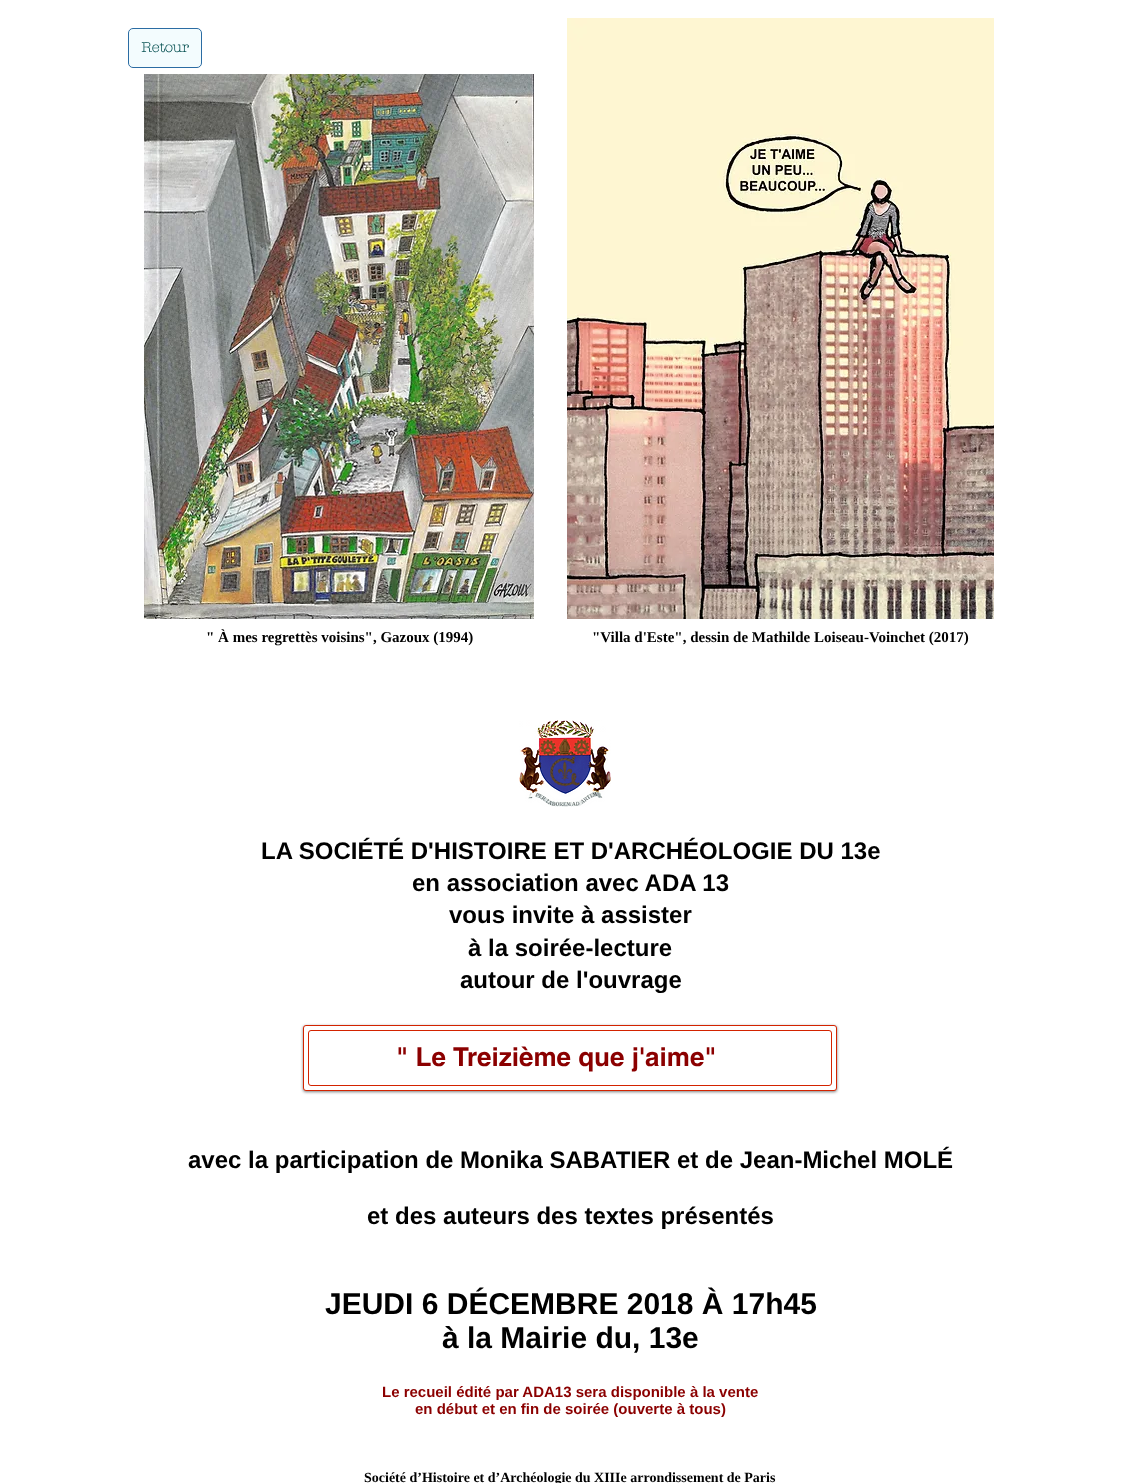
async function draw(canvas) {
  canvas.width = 1130
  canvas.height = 1483
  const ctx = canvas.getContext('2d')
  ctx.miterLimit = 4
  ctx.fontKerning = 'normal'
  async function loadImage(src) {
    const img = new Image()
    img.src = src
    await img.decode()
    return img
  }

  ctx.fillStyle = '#fff'
  ctx.fillRect(0, 0, 1130, 1483)
  ctx.fillStyle = '#f3fcfe'
  ctx.beginPath()
  ctx.roundRect(128.5, 28.5, 73, 39, 4.5)
  ctx.fill()
  ctx.strokeStyle = '#2b6ca3'
  ctx.stroke()
  ctx.font = 'bold 14px "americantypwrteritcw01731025"'
  ctx.fillStyle = '#004d4e'
  ctx.fillText('Retour', 141, 52)
  ctx.drawImage(await loadImage('image0.png'), 144, 74, 390, 545)
  ctx.drawImage(await loadImage('image1.png'), 567, 18, 427, 601)
  ctx.font = 'bold 15px Liberation Serif'
  ctx.fillStyle = '#000'
  ctx.fillText('" À mes regrettès voisins", Gazoux (1994)', 206, 642)
  ctx.fillText('"Villa d\'Este", dessin de Mathilde Loiseau-Voinchet (2017)', 592, 642)
  ctx.drawImage(await loadImage('image2.png'), 519, 720, 92, 87)
  ctx.font = 'bold 24px Liberation Sans'
  ctx.fillText('LA SOCIÉTÉ D\'HISTOIRE ET D\'ARCHÉOLOGIE DU 13e', 261, 859)
  ctx.fillText('en association avec ADA 13', 412, 891)
  ctx.fillText('vous invite à assister', 449, 923)
  ctx.fillText('à la soirée-lecture', 468, 956)
  ctx.fillText('autour de l\'ouvrage', 460, 988)
  ctx.fillText('avec la participation de Monika SABATIER et de Jean-Michel MOLÉ', 188, 1168)
  ctx.fillText('et des auteurs des textes présentés', 367, 1224)
  ctx.font = 'bold 30px Liberation Sans'
  ctx.fillText('JEUDI 6 DÉCEMBRE 2018 À 17h45', 325, 1314)
  ctx.fillText('à la Mairie du, 13e', 442, 1348)
  ctx.font = 'bold 15px Liberation Sans'
  ctx.fillStyle = '#8b0000'
  ctx.fillText('Le recueil édité par ADA13 sera disponible à la vente', 382, 1397)
  ctx.fillText('en début et en fin de soirée (ouverte à tous)', 415, 1414)
  ctx.fillStyle = '#00000080'
  ctx.filter = 'blur(1.5px)'
  ctx.beginPath()
  ctx.roundRect(303, 1026, 534, 66, 3)
  ctx.fill()
  ctx.filter = 'none'
  ctx.fillStyle = '#fff'
  ctx.beginPath()
  ctx.roundRect(303.5, 1025.5, 533, 65, 2.5)
  ctx.fill()
  ctx.strokeStyle = '#d32300'
  ctx.stroke()
  ctx.beginPath()
  ctx.roundRect(308.5, 1030.5, 523, 55, 2.5)
  ctx.stroke()
  ctx.font = 'bold 26px helvetica'
  ctx.fillStyle = '#8b0000'
  ctx.fillText('" Le Treizième que j\'aime"', 396, 1066)
  ctx.font = 'bold 14px Liberation Serif'
  ctx.fillStyle = '#000'
  ctx.fillText('Société d’Histoire et d’Archéologie du XIIIe arrondissement de Paris', 364, 1482)
}

draw(document.querySelector('canvas'))
